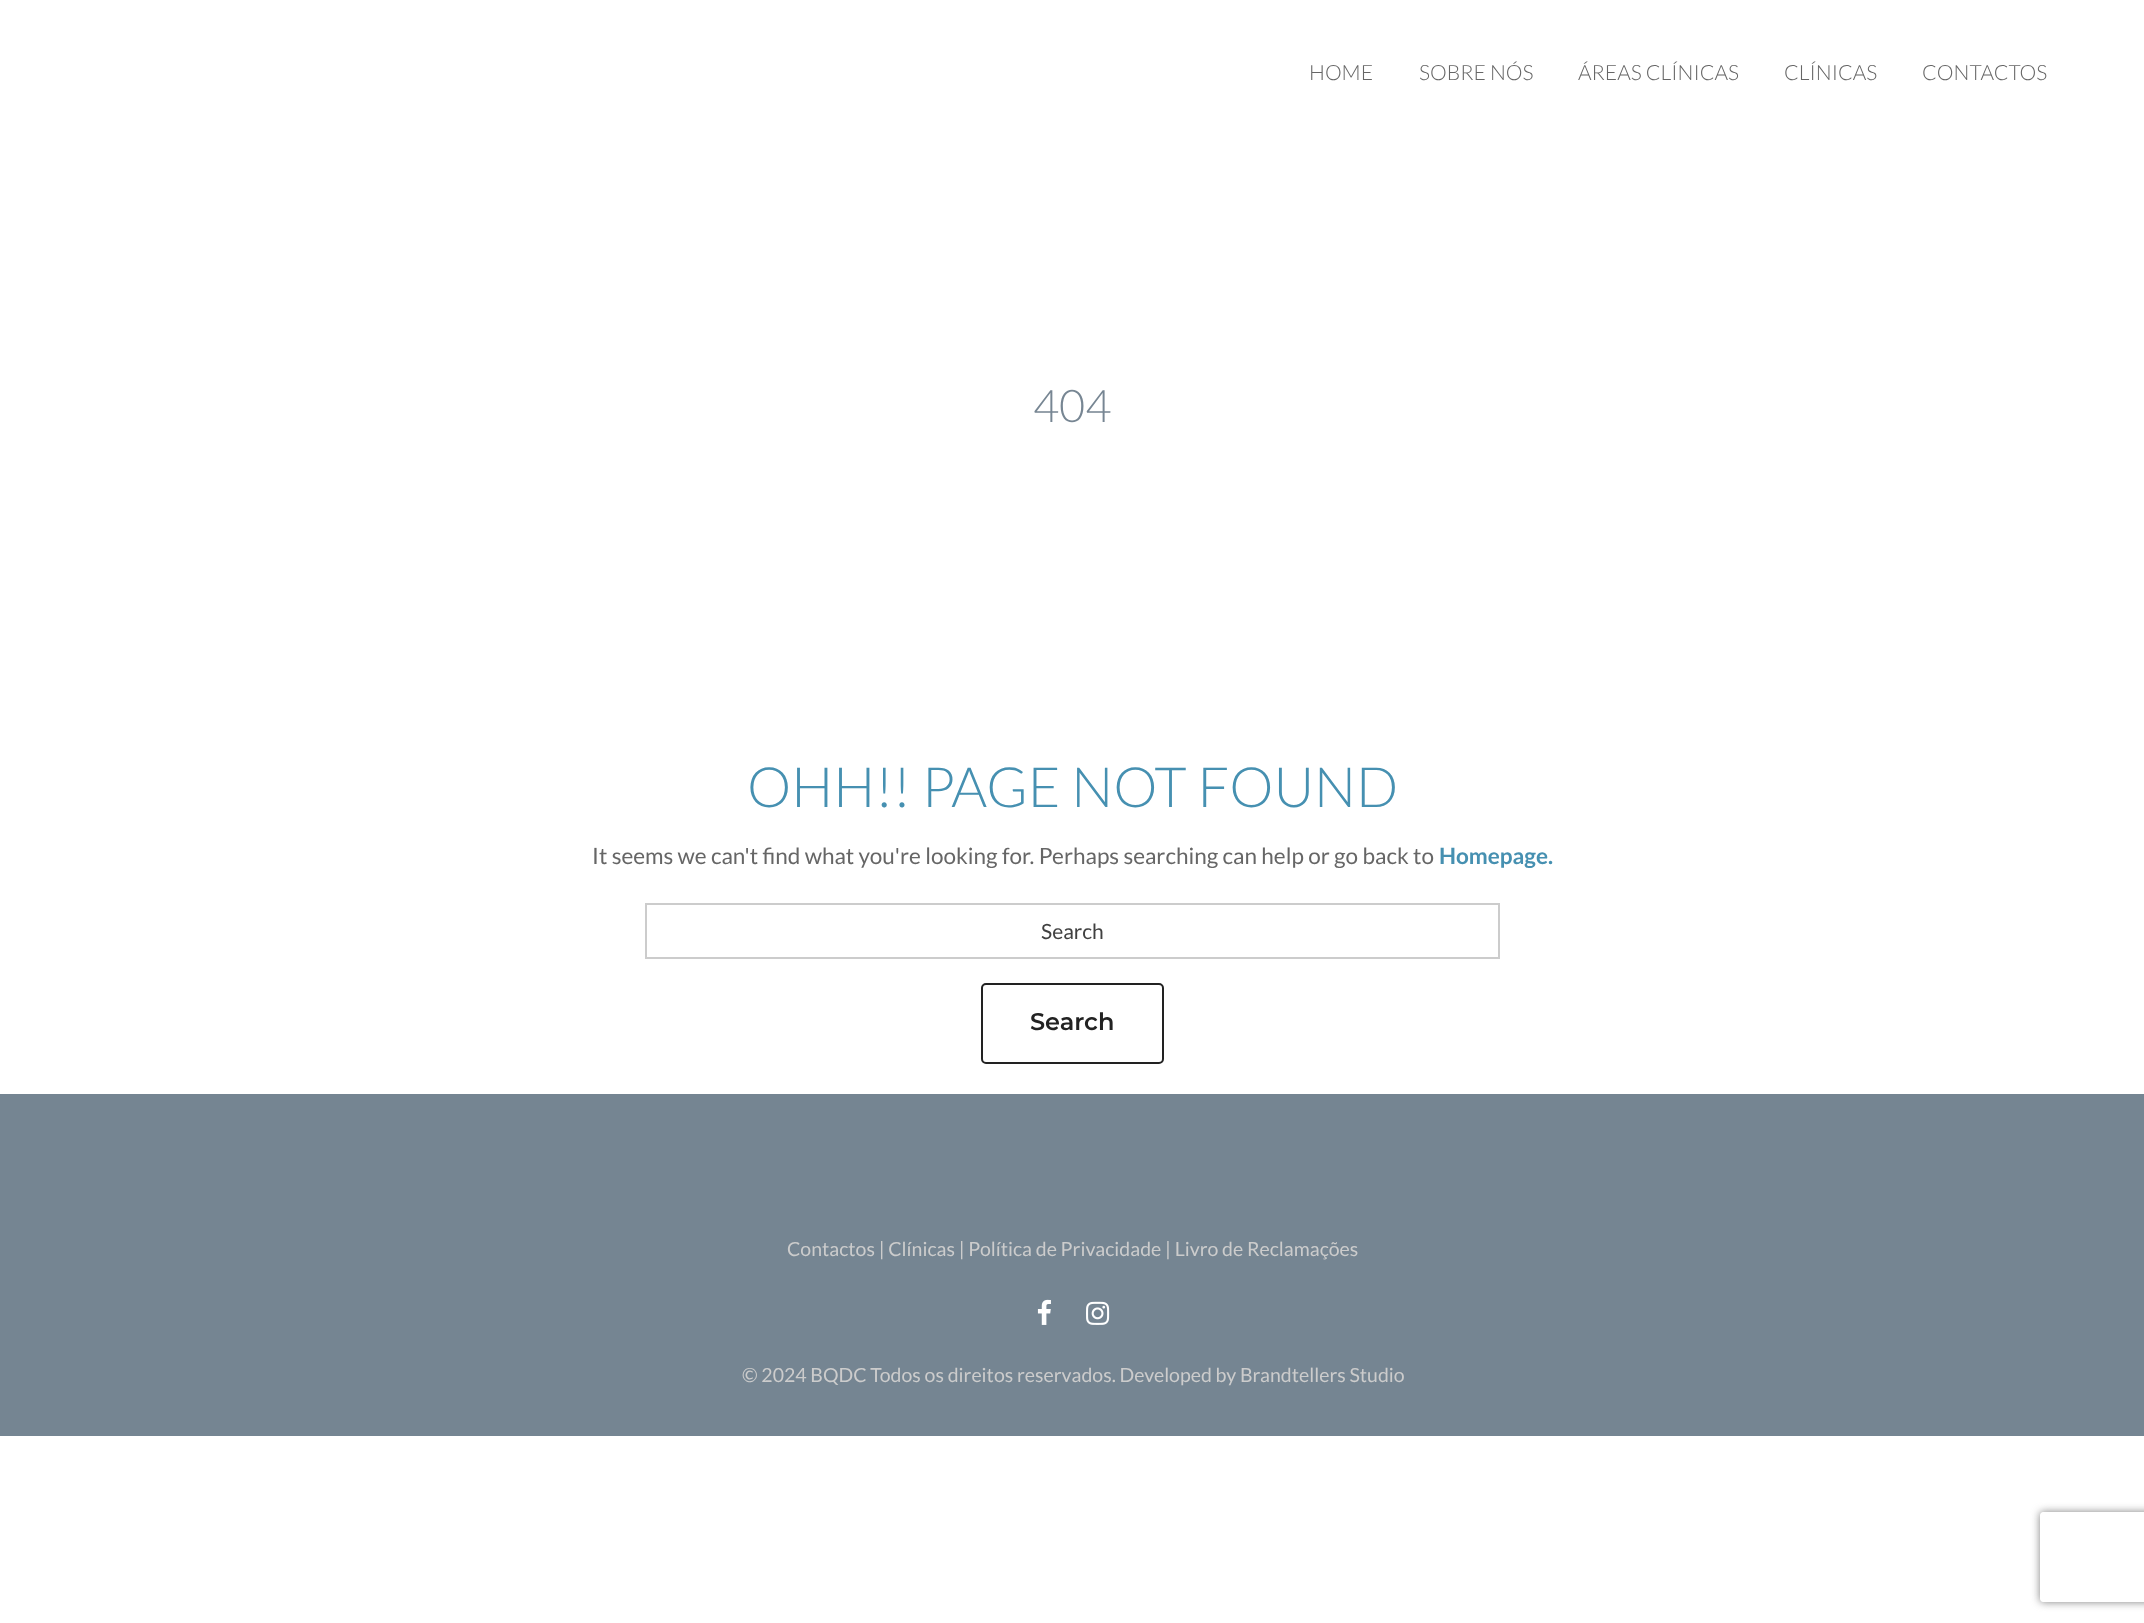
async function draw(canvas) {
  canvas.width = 2144
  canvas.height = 1623
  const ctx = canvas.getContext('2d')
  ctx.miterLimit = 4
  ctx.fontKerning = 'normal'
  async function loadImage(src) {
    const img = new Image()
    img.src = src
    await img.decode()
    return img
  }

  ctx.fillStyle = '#fff'
  ctx.fillRect(0, 0, 2144, 1623)
  ctx.font = '300 21px Lato'
  ctx.fillStyle = '#666'
  ctx.fillText('HOME', 1309, 80)
  ctx.fillText('SOBRE NÓS', 1419, 80)
  ctx.fillText('ÁREAS CLÍNICAS', 1578, 80)
  ctx.fillText('CLÍNICAS', 1784, 80)
  ctx.fillText('CONTACTOS', 1922, 80)
  ctx.font = '300 45px Lato'
  ctx.fillStyle = '#778693'
  ctx.fillText('404', 1033, 422)
  ctx.font = '300 55.5px Lato'
  ctx.fillStyle = '#4690b1'
  ctx.fillText('OHH!! PAGE NOT FOUND', 747, 807)
  ctx.font = '22.5px Lato'
  ctx.fillStyle = '#666'
  ctx.fillText('It seems we can\'t find what you\'re looking for. Perhaps searching can help or go back to', 592, 864)
  ctx.font = 'bold 22.5px Lato'
  ctx.fillStyle = '#4690b1'
  ctx.fillText('Homepage.', 1439, 864)
  ctx.strokeStyle = '#ccc'
  ctx.lineWidth = 2
  ctx.strokeRect(646, 904, 853, 54)
  ctx.font = '21px Lato'
  ctx.fillStyle = '#404040'
  ctx.fillText('Search', 1041, 939)
  ctx.beginPath()
  ctx.roundRect(982, 984, 181, 79, 4)
  ctx.strokeStyle = '#222'
  ctx.stroke()
  ctx.font = '100 24px Montserrat'
  ctx.fillStyle = '#222'
  ctx.fillText('Search', 1030, 1030)
  ctx.fillStyle = '#758592'
  ctx.fillRect(0, 1094, 2144, 342)
  ctx.font = '19.5px Lato'
  ctx.fillStyle = '#ccc'
  ctx.fillText('Contactos | Clínicas | Política de Privacidade | Livro de Reclamações', 787, 1256)
  ctx.drawImage(await loadImage('image0.png'), 1037, 1299, 14, 26)
  ctx.drawImage(await loadImage('image1.png'), 1086, 1301, 24, 24)
  ctx.fillText('© 2024 BQDC Todos os direitos reservados. Developed by Brandtellers Studio', 742, 1382)
  ctx.save()
  ctx.beginPath()
  ctx.moveTo(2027, 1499)
  ctx.lineTo(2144, 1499)
  ctx.lineTo(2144, 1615)
  ctx.lineTo(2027, 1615)
  ctx.closePath()
  ctx.moveTo(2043, 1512)
  ctx.lineTo(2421, 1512)
  ctx.bezierCurveTo(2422.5, 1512, 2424, 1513.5, 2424, 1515)
  ctx.lineTo(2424, 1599)
  ctx.bezierCurveTo(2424, 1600.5, 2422.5, 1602, 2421, 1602)
  ctx.lineTo(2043, 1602)
  ctx.bezierCurveTo(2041.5, 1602, 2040, 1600.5, 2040, 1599)
  ctx.lineTo(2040, 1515)
  ctx.bezierCurveTo(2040, 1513.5, 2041.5, 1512, 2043, 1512)
  ctx.closePath()
  ctx.clip('evenodd')
  ctx.fillStyle = '#808080'
  ctx.filter = 'blur(4px)'
  ctx.beginPath()
  ctx.roundRect(2040, 1512, 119, 90, 3)
  ctx.fill()
  ctx.filter = 'none'
  ctx.restore()
}

draw(document.querySelector('canvas'))
